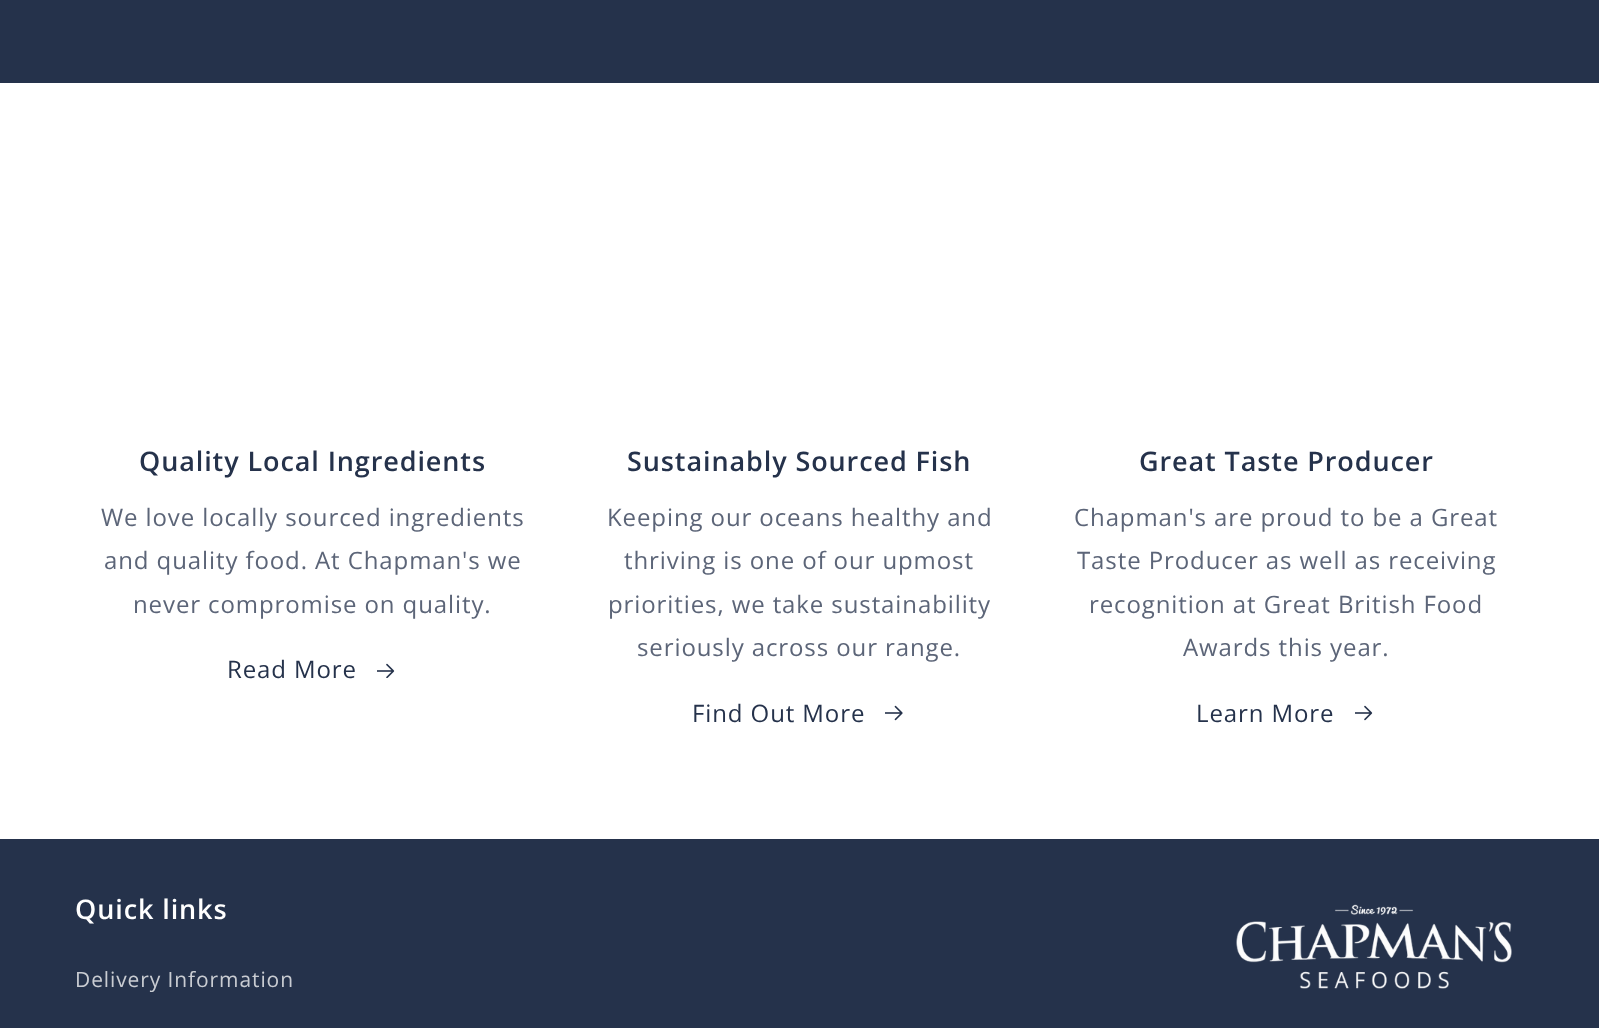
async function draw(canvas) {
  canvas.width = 1599
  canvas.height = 1028
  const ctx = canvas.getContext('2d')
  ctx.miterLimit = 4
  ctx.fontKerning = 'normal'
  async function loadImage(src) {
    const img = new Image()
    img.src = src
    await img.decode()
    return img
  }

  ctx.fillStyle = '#fff'
  ctx.fillRect(0, 0, 1599, 1028)
  ctx.fillStyle = '#25324b'
  ctx.fillRect(0, 0, 1599, 83)
  ctx.letterSpacing = '0.9px'
  ctx.font = '600 27px Open Sans'
  ctx.fillText('Quality Local Ingredients', 139, 471)
  ctx.font = '24px Open Sans'
  ctx.fillStyle = '#5c6578'
  ctx.fillText('We love locally sourced ingredients', 101, 526)
  ctx.fillText('and quality food. At Chapman\'s we', 104, 569)
  ctx.fillText('never compromise on quality.', 133, 613)
  ctx.fillStyle = '#25324b'
  ctx.fillText('Read More', 227, 678)
  ctx.drawImage(await loadImage('image0.png'), 377, 663, 18, 15)
  ctx.font = '600 27px Open Sans'
  ctx.fillText('Sustainably Sourced Fish', 627, 471)
  ctx.font = '24px Open Sans'
  ctx.fillStyle = '#5c6578'
  ctx.fillText('Keeping our oceans healthy and', 607, 526)
  ctx.fillText('thriving is one of our upmost', 624, 569)
  ctx.fillText('priorities, we take sustainability', 608, 613)
  ctx.fillText('seriously across our range.', 637, 656)
  ctx.fillStyle = '#25324b'
  ctx.fillText('Find Out More', 692, 722)
  ctx.drawImage(await loadImage('image1.png'), 885, 705, 18, 16)
  ctx.font = '600 27px Open Sans'
  ctx.fillText('Great Taste Producer', 1139, 471)
  ctx.font = '24px Open Sans'
  ctx.fillStyle = '#5c6578'
  ctx.fillText('Chapman\'s are proud to be a Great', 1074, 526)
  ctx.fillText('Taste Producer as well as receiving', 1077, 569)
  ctx.fillText('recognition at Great British Food', 1089, 613)
  ctx.fillText('Awards this year.', 1183, 656)
  ctx.fillStyle = '#25324b'
  ctx.fillText('Learn More', 1196, 722)
  ctx.drawImage(await loadImage('image2.png'), 1355, 705, 18, 16)
  ctx.fillRect(0, 839, 1599, 189)
  ctx.font = '600 27px Open Sans'
  ctx.fillStyle = '#fff'
  ctx.fillText('Quick links', 75, 919)
  ctx.font = '21px Open Sans'
  ctx.fillStyle = '#c9ccd2'
  ctx.fillText('Delivery Information', 75, 987)
  ctx.drawImage(await loadImage('image3.png'), 1236, 904, 276, 85)
}

draw(document.querySelector('canvas'))
